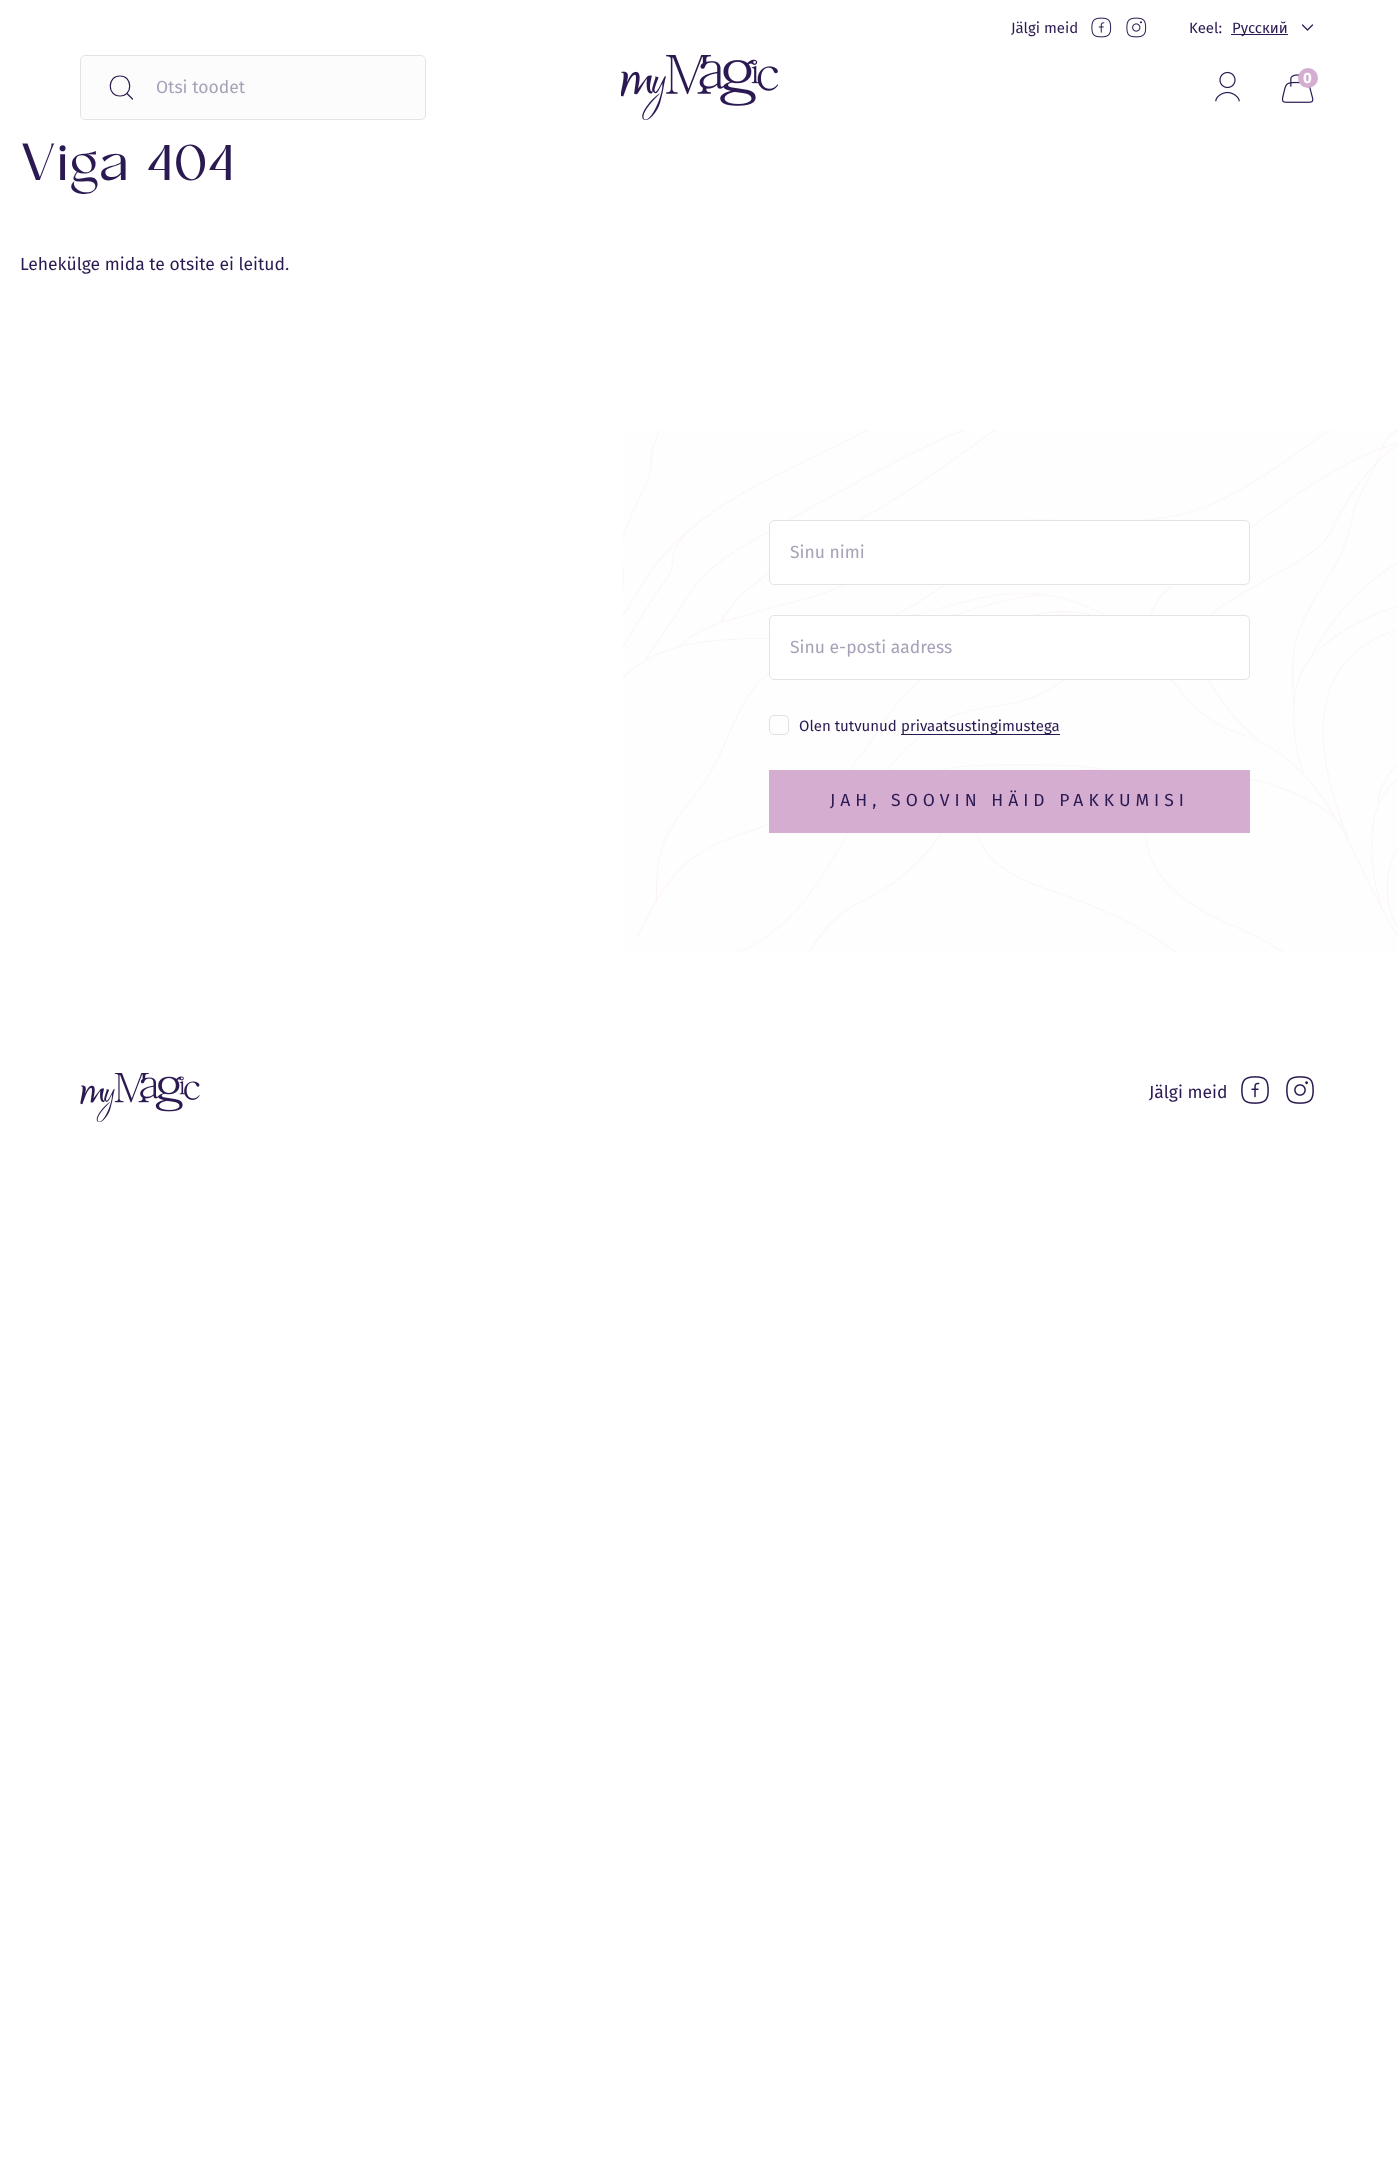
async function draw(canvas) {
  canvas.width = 1397
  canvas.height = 2160
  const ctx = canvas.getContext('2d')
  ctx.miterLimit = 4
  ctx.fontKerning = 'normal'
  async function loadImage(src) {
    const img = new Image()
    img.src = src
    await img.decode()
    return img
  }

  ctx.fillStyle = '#fff'
  ctx.fillRect(0, 0, 1397, 2160)
  ctx.font = '15px Fira Sans'
  ctx.fillStyle = '#2b1951'
  ctx.fillText('Jälgi meid', 1011, 33)
  ctx.drawImage(await loadImage('image0.png'), 1091, 17, 21, 21)
  ctx.drawImage(await loadImage('image1.png'), 1126, 17, 21, 21)
  ctx.fillText('Keel:', 1189, 33)
  ctx.fillRect(1231, 34, 57, 1)
  ctx.fillText('Русский', 1232, 33)
  ctx.beginPath()
  ctx.moveTo(1302.5, 25)
  ctx.lineTo(1307.5, 30)
  ctx.lineTo(1312.5, 25)
  ctx.strokeStyle = '#2b1951'
  ctx.lineWidth = 1.2
  ctx.lineCap = 'round'
  ctx.lineJoin = 'round'
  ctx.stroke()
  ctx.fillStyle = '#fcfcfc'
  ctx.beginPath()
  ctx.roundRect(81, 56, 344, 63, 4)
  ctx.fill()
  ctx.beginPath()
  ctx.moveTo(120, 96)
  ctx.bezierCurveTo(133, 96, 133, 76, 120, 76)
  ctx.bezierCurveTo(107, 76, 107, 96, 120, 96)
  ctx.closePath()
  ctx.moveTo(127.5, 94)
  ctx.lineTo(132.5, 99)
  ctx.stroke()
  ctx.beginPath()
  ctx.roundRect(80.5, 55.5, 345, 64, 4.5)
  ctx.strokeStyle = '#e4e4e6'
  ctx.lineWidth = 1
  ctx.lineJoin = 'miter'
  ctx.stroke()
  ctx.font = '17.5px Fira Sans'
  ctx.fillStyle = '#a8a1b8'
  ctx.fillText('Otsi toodet', 156, 93)
  ctx.drawImage(await loadImage('image2.png'), 621, 55, 157, 65)
  ctx.drawImage(await loadImage('image3.png'), 1215, 71, 25, 31)
  ctx.drawImage(await loadImage('image4.png'), 1281, 74, 33, 29)
  ctx.fillStyle = '#d5add1'
  ctx.beginPath()
  ctx.arc(1308, 78, 10, 0, 2 * Math.PI)
  ctx.fill()
  ctx.font = 'bold 15px Fira Sans'
  ctx.fillStyle = '#fff'
  ctx.fillText('0', 1303, 83)
  ctx.font = '50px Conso'
  ctx.fillStyle = '#2b1951'
  ctx.fillText('Viga 404', 20, 180)
  ctx.font = '17.5px Fira Sans'
  ctx.fillText('Lehekülge mida te otsite ei leitud.', 20, 270)
  ctx.drawImage(await loadImage('image5.png'), 622, 430, 775, 523)
  ctx.fillStyle = '#fff'
  ctx.beginPath()
  ctx.roundRect(769.5, 520.5, 480, 64, 4.5)
  ctx.fill()
  ctx.stroke()
  ctx.fillStyle = '#a8a1b8'
  ctx.fillText('Sinu nimi', 790, 558)
  ctx.fillStyle = '#fff'
  ctx.beginPath()
  ctx.roundRect(769.5, 615.5, 480, 64, 4.5)
  ctx.fill()
  ctx.stroke()
  ctx.fillStyle = '#a8a1b8'
  ctx.fillText('Sinu e-posti aadress', 790, 653)
  ctx.beginPath()
  ctx.roundRect(769.5, 715.5, 19, 19, 4.5)
  ctx.strokeStyle = '#dee2e6'
  ctx.stroke()
  ctx.font = '15px Fira Sans'
  ctx.fillStyle = '#2b1951'
  ctx.fillText('Olen tutvunud', 799, 731)
  ctx.fillRect(901, 734, 159, 1)
  ctx.fillText('privaatsustingimustega', 901, 731)
  ctx.fillStyle = '#d5add1'
  ctx.fillRect(769, 770, 481, 63)
  ctx.letterSpacing = '5px'
  ctx.font = '17.5px Fira Sans'
  ctx.fillStyle = '#2b1951'
  ctx.fillText('JAH, SOOVIN HÄID PAKKUMISI', 830, 806)
  ctx.drawImage(await loadImage('image6.png'), 80, 1073, 120, 49)
  ctx.letterSpacing = '0px'
  ctx.fillText('Jälgi meid', 1149, 1098)
  ctx.drawImage(await loadImage('image7.png'), 1241, 1076, 28, 28)
  ctx.drawImage(await loadImage('image8.png'), 1286, 1076, 28, 28)
}

draw(document.querySelector('canvas'))
